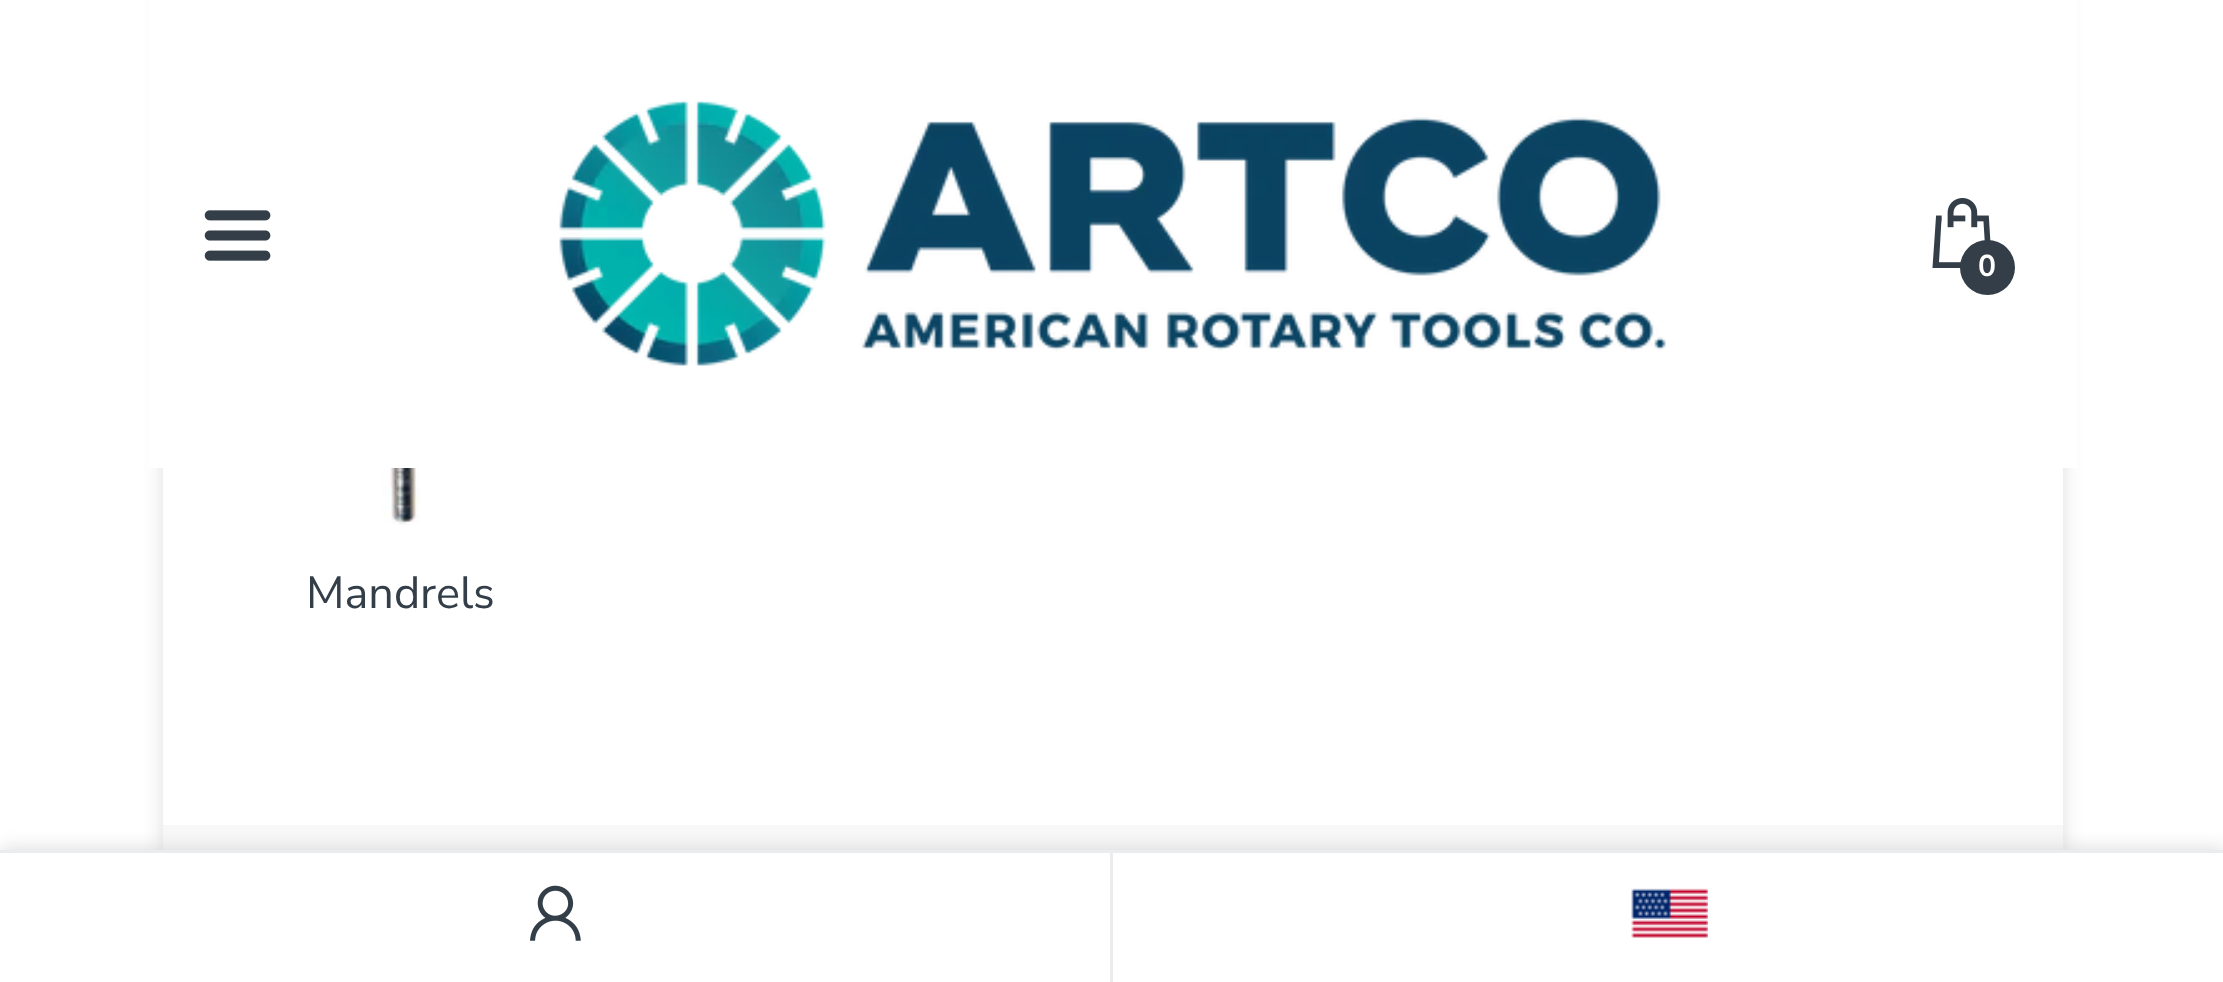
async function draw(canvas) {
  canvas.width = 2223
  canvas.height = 982
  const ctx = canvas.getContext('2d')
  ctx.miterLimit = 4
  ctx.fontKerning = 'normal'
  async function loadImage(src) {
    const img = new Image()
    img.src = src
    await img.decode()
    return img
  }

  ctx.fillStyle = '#fff'
  ctx.fillRect(0, 0, 2223, 982)
  ctx.fillStyle = '#ddd'
  ctx.filter = 'blur(10px)'
  ctx.beginPath()
  ctx.rect(163, -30, 1900, 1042)
  ctx.fill()
  ctx.filter = 'none'
  ctx.fillStyle = '#fff'
  ctx.fillRect(163, 468, 1900, 357)
  ctx.fillRect(149, 0, 1928, 468)
  ctx.drawImage(await loadImage('image0.png'), 204, 210, 67, 51)
  ctx.drawImage(await loadImage('image1.png'), 559, 100, 1107, 266)
  ctx.drawImage(await loadImage('image2.png'), 1932, 198, 59, 70)
  ctx.fillStyle = '#333e48'
  ctx.beginPath()
  ctx.arc(1987.5, 267.5, 27.5, 0, 2 * Math.PI)
  ctx.fill()
  ctx.font = 'bold 30px Nunito Sans'
  ctx.fillStyle = '#fff'
  ctx.fillText('0', 1978, 276)
  ctx.drawImage(await loadImage('image3.png'), 350, 468, 106, 57)
  ctx.font = '45px Nunito Sans'
  ctx.fillStyle = '#333e48'
  ctx.fillText('Mandrels', 306, 608)
  ctx.fillStyle = '#f8f8f8'
  ctx.fillRect(163, 825, 1900, 25)
  ctx.fillStyle = '#c9c9c9bf'
  ctx.filter = 'blur(10px)'
  ctx.beginPath()
  ctx.rect(0, 850, 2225, 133)
  ctx.fill()
  ctx.filter = 'none'
  ctx.fillStyle = '#fff'
  ctx.fillRect(0, 853, 2223, 129)
  ctx.fillStyle = '#ebeced'
  ctx.fillRect(0, 850, 2223, 3)
  ctx.fillRect(1110, 853, 3, 129)
  ctx.drawImage(await loadImage('image4.png'), 530, 885, 51, 56)
  ctx.drawImage(await loadImage('image5.png'), 1631, 888, 77, 50)
}

draw(document.querySelector('canvas'))
